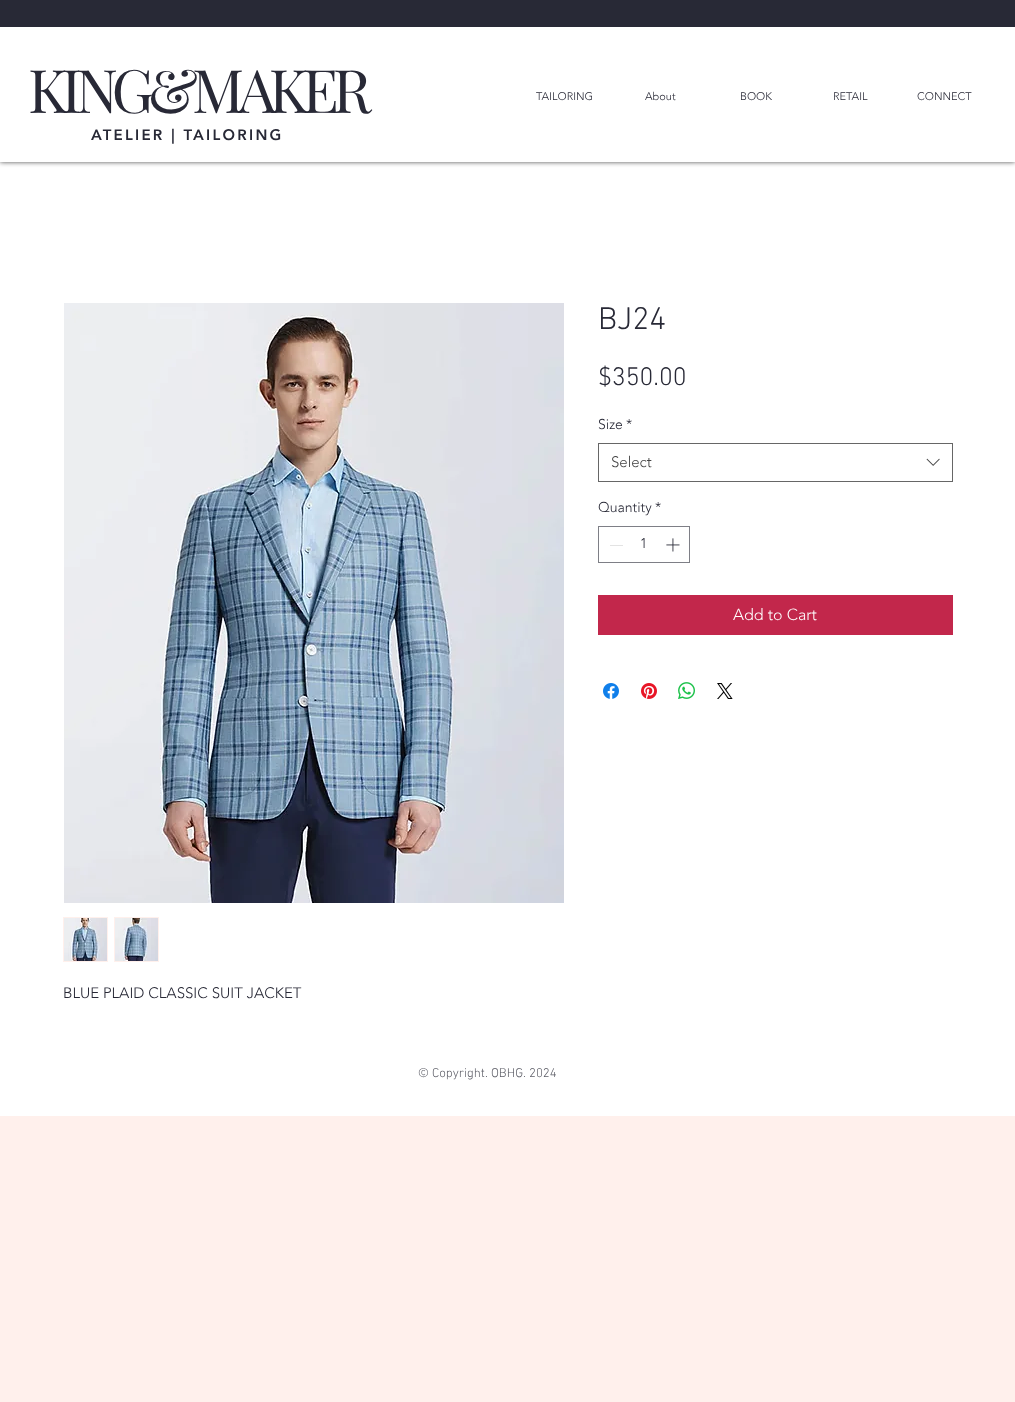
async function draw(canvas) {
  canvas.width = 1015
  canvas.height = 1402
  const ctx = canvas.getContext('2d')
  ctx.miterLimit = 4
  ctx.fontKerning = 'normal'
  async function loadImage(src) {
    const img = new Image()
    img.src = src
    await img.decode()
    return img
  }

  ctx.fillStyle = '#fff0ec'
  ctx.fillRect(0, 0, 1015, 1402)
  ctx.fillStyle = '#fff'
  ctx.fillRect(0, 162, 1015, 954)
  ctx.fillStyle = '#000000b3'
  ctx.filter = 'blur(2.5px)'
  ctx.beginPath()
  ctx.rect(0, 0, 1015, 162)
  ctx.fill()
  ctx.filter = 'none'
  ctx.fillStyle = '#fff'
  ctx.fillRect(0, 27, 1015, 135)
  ctx.fillStyle = '#282936'
  ctx.fillRect(0, 0, 1015, 27)
  ctx.letterSpacing = '-6px'
  ctx.font = '60px Playfair Display'
  ctx.fillText('KING&MAKER', 28, 113)
  ctx.letterSpacing = '2.25px'
  ctx.font = '900 15px "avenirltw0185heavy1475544"'
  ctx.fillText('ATELIER | TAILORING', 91, 140)
  ctx.letterSpacing = '0px'
  ctx.font = '300 11px "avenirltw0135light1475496"'
  ctx.fillText('TAILORING', 536, 100)
  ctx.fillText('About', 645, 100)
  ctx.fillText('BOOK', 740, 100)
  ctx.fillText('RETAIL', 833, 100)
  ctx.fillText('CONNECT', 917, 100)
  ctx.font = '300 32px "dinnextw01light"'
  ctx.fillText('BJ24', 598, 329)
  ctx.font = '300 26px "dinnextw01light"'
  ctx.fillText('$350.00', 598, 385)
  ctx.font = '300 14px "avenirltw0135light1475496"'
  ctx.fillText('Size', 598, 429)
  ctx.fillText('*', 626, 429)
  ctx.strokeStyle = '#666'
  ctx.strokeRect(598.5, 443.5, 354, 38)
  ctx.font = '300 15px "avenirltw0135light1475496"'
  ctx.fillStyle = '#444'
  ctx.fillText('Select', 611, 467)
  ctx.drawImage(await loadImage('image0.png'), 926, 458, 14, 8)
  ctx.font = '300 14px "avenirltw0135light1475496"'
  ctx.fillStyle = '#282936'
  ctx.fillText('Quantity', 598, 512)
  ctx.fillText('*', 655, 512)
  ctx.strokeStyle = '#7e7f86'
  ctx.strokeRect(598.5, 526.5, 91, 36)
  ctx.fillStyle = '#e3e3e3'
  ctx.fillRect(610, 545, 13, 1)
  ctx.fillStyle = '#282936'
  ctx.fillText('1', 640, 548)
  ctx.drawImage(await loadImage('image1.png'), 666, 538, 14, 14)
  ctx.fillStyle = '#c2274b'
  ctx.fillRect(598, 595, 355, 40)
  ctx.font = '300 16px "avenirltw0135light1475496"'
  ctx.fillStyle = '#fff'
  ctx.fillText('Add to Cart', 733, 620)
  ctx.drawImage(await loadImage('image2.png'), 603, 683, 16, 16)
  ctx.drawImage(await loadImage('image3.png'), 641, 683, 16, 16)
  ctx.drawImage(await loadImage('image4.png'), 678, 682, 17, 17)
  ctx.drawImage(await loadImage('image5.png'), 717, 683, 16, 16)
  ctx.drawImage(await loadImage('image6.png'), 64, 303, 500, 600)
  ctx.fillStyle = '#fff0ec'
  ctx.fillRect(63, 917, 45, 45)
  ctx.drawImage(await loadImage('image7.png'), 64, 918, 43, 43)
  ctx.fillRect(114, 917, 45, 45)
  ctx.drawImage(await loadImage('image8.png'), 115, 918, 43, 43)
  ctx.font = '300 15px "avenirltw0135light1475496"'
  ctx.fillStyle = '#282936'
  ctx.fillText('BLUE PLAID CLASSIC SUIT JACKET', 63, 998)
  ctx.font = '300 13px "dinnextw01light"'
  ctx.fillStyle = '#5e5f68'
  ctx.fillText('© Copyright. OBHG. 2024', 418, 1077)
}

draw(document.querySelector('canvas'))
